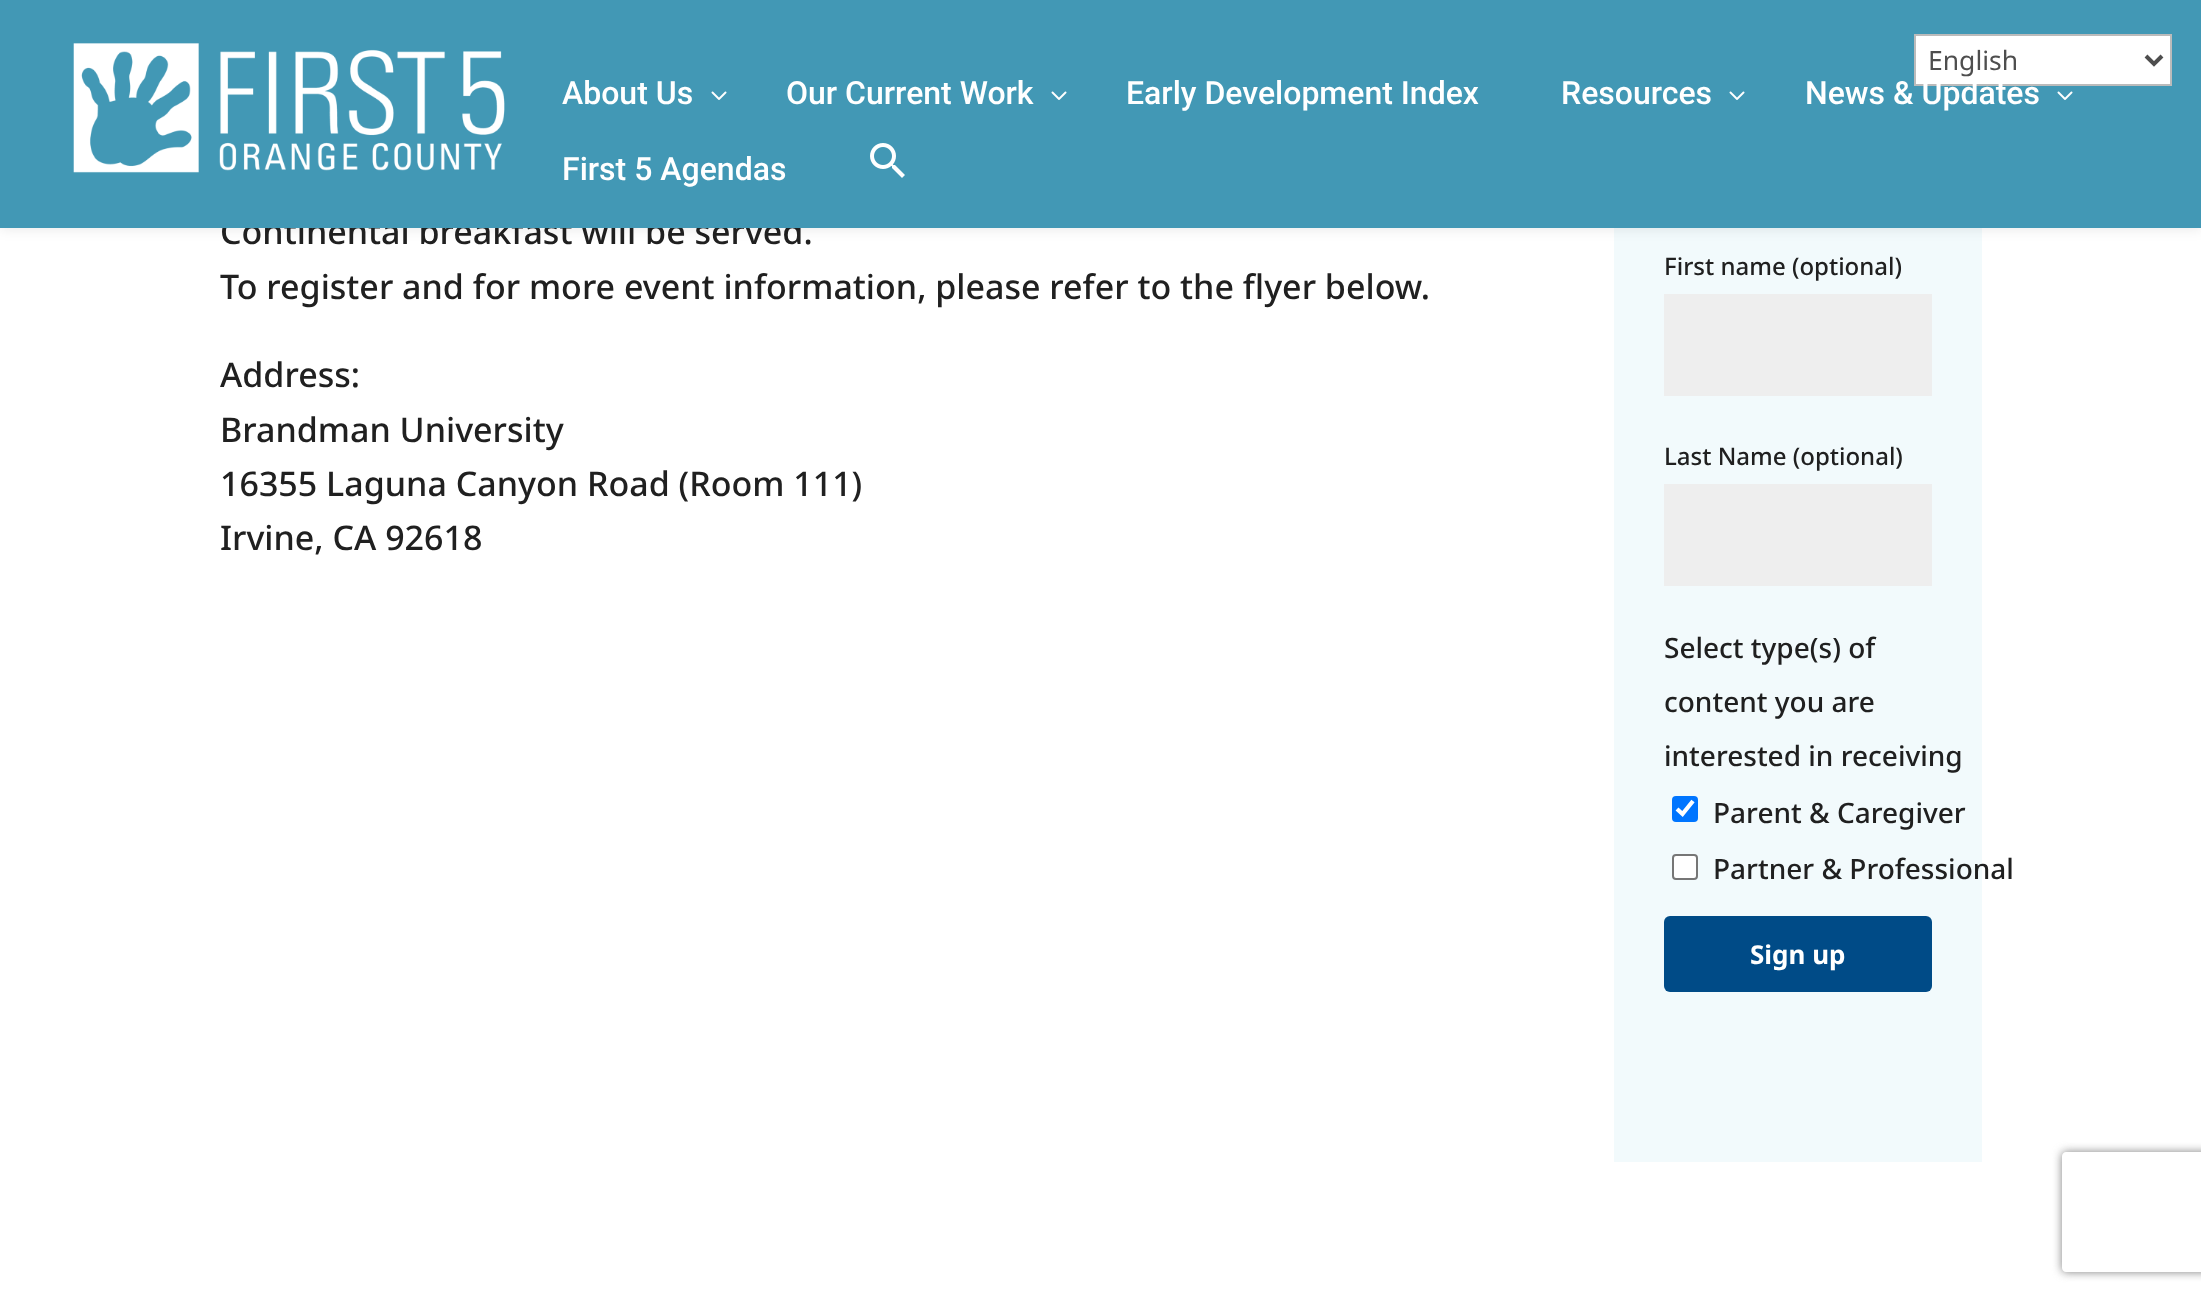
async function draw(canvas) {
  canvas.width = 2201
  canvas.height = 1300
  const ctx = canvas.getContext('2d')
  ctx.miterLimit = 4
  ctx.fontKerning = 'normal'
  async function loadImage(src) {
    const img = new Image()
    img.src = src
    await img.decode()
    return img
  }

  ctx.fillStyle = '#fff'
  ctx.fillRect(0, 0, 2201, 1300)
  ctx.fillStyle = '#f2fafc'
  ctx.fillRect(1614, 228, 368, 934)
  ctx.fillStyle = '#0000001a'
  ctx.filter = 'blur(7px)'
  ctx.beginPath()
  ctx.rect(0, 0, 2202, 228)
  ctx.fill()
  ctx.filter = 'none'
  ctx.font = '500 34px Noto Sans'
  ctx.fillStyle = '#202020'
  ctx.fillText('Continental breakfast will be served.', 220, 244)
  ctx.fillStyle = '#4298b5'
  ctx.fillRect(0, 0, 2201, 228)
  ctx.fillStyle = '#fff'
  ctx.beginPath()
  ctx.rect(1915, 35, 256, 50)
  ctx.fill()
  ctx.strokeStyle = '#bbb'
  ctx.lineWidth = 2
  ctx.stroke()
  ctx.beginPath()
  ctx.moveTo(2146, 56)
  ctx.lineTo(2154, 64)
  ctx.lineTo(2162, 56)
  ctx.strokeStyle = '#4e4e4e'
  ctx.lineWidth = 4
  ctx.stroke()
  ctx.font = '26.5px Noto Sans'
  ctx.fillStyle = '#4e4e4e'
  ctx.fillText('English', 1928, 70)
  ctx.drawImage(await loadImage('image0.png'), 73, 43, 432, 130)
  ctx.font = '500 32px Roboto'
  ctx.fillStyle = '#fff'
  ctx.fillText('About Us', 562, 104)
  ctx.drawImage(await loadImage('image1.png'), 711, 91, 16, 9)
  ctx.fillText('Our Current Work', 786, 104)
  ctx.drawImage(await loadImage('image1.png'), 1051, 91, 16, 9)
  ctx.fillText('Early Development Index', 1126, 104)
  ctx.fillText('Resources', 1561, 104)
  ctx.drawImage(await loadImage('image1.png'), 1729, 91, 16, 9)
  ctx.fillText('News & Updates', 1805, 104)
  ctx.drawImage(await loadImage('image1.png'), 2057, 91, 16, 9)
  ctx.fillText('First 5 Agendas', 562, 180)
  ctx.drawImage(await loadImage('image2.png'), 870, 143, 35, 35)
  ctx.font = '500 34px Noto Sans'
  ctx.fillStyle = '#202020'
  ctx.fillText('To register and for more event information, please refer to the flyer below.', 220, 299)
  ctx.fillText('Address:', 220, 387)
  ctx.fillText('Brandman University', 220, 442)
  ctx.fillText('16355 Laguna Canyon Road (Room 111)', 220, 496)
  ctx.fillText('Irvine, CA 92618', 220, 550)
  ctx.font = '500 24px Noto Sans'
  ctx.fillText('First name (optional)', 1664, 275)
  ctx.fillStyle = '#eee'
  ctx.fillRect(1664, 294, 268, 102)
  ctx.fillStyle = '#202020'
  ctx.fillText('Last Name (optional)', 1664, 465)
  ctx.fillStyle = '#eee'
  ctx.fillRect(1664, 484, 268, 102)
  ctx.font = '500 28px Noto Sans'
  ctx.fillStyle = '#202020'
  ctx.fillText('Select type(s) of', 1664, 658)
  ctx.fillText('content you are', 1664, 712)
  ctx.fillText('interested in receiving', 1664, 766)
  ctx.fillStyle = '#0075ff'
  ctx.beginPath()
  ctx.roundRect(1672, 796, 26, 26, 4)
  ctx.fill()
  ctx.beginPath()
  ctx.moveTo(1677, 809)
  ctx.lineTo(1682.5, 814)
  ctx.lineTo(1693, 801)
  ctx.strokeStyle = '#fff'
  ctx.lineWidth = 4.2
  ctx.stroke()
  ctx.fillStyle = '#202020'
  ctx.fillText('Parent & Caregiver', 1713, 823)
  ctx.fillStyle = '#fff'
  ctx.beginPath()
  ctx.roundRect(1673, 855, 24, 24, 3)
  ctx.fill()
  ctx.strokeStyle = '#767676'
  ctx.lineWidth = 2
  ctx.stroke()
  ctx.fillStyle = '#202020'
  ctx.fillText('Partner & Professional', 1713, 879)
  ctx.fillStyle = '#004b87'
  ctx.beginPath()
  ctx.roundRect(1664, 916, 268, 76, 6)
  ctx.fill()
  ctx.font = 'bold 26px Noto Sans'
  ctx.fillStyle = '#fff'
  ctx.fillText('Sign up', 1750, 964)
  ctx.save()
  ctx.beginPath()
  ctx.moveTo(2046, 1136)
  ctx.lineTo(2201, 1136)
  ctx.lineTo(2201, 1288)
  ctx.lineTo(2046, 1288)
  ctx.closePath()
  ctx.moveTo(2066, 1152)
  ctx.lineTo(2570, 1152)
  ctx.bezierCurveTo(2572, 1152, 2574, 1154, 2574, 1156)
  ctx.lineTo(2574, 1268)
  ctx.bezierCurveTo(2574, 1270, 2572, 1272, 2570, 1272)
  ctx.lineTo(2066, 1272)
  ctx.bezierCurveTo(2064, 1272, 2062, 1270, 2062, 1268)
  ctx.lineTo(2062, 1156)
  ctx.bezierCurveTo(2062, 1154, 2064, 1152, 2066, 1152)
  ctx.closePath()
  ctx.clip('evenodd')
  ctx.fillStyle = '#808080'
  ctx.filter = 'blur(5px)'
  ctx.beginPath()
  ctx.roundRect(2062, 1152, 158, 120, 4)
  ctx.fill()
  ctx.filter = 'none'
  ctx.restore()
}

draw(document.querySelector('canvas'))
